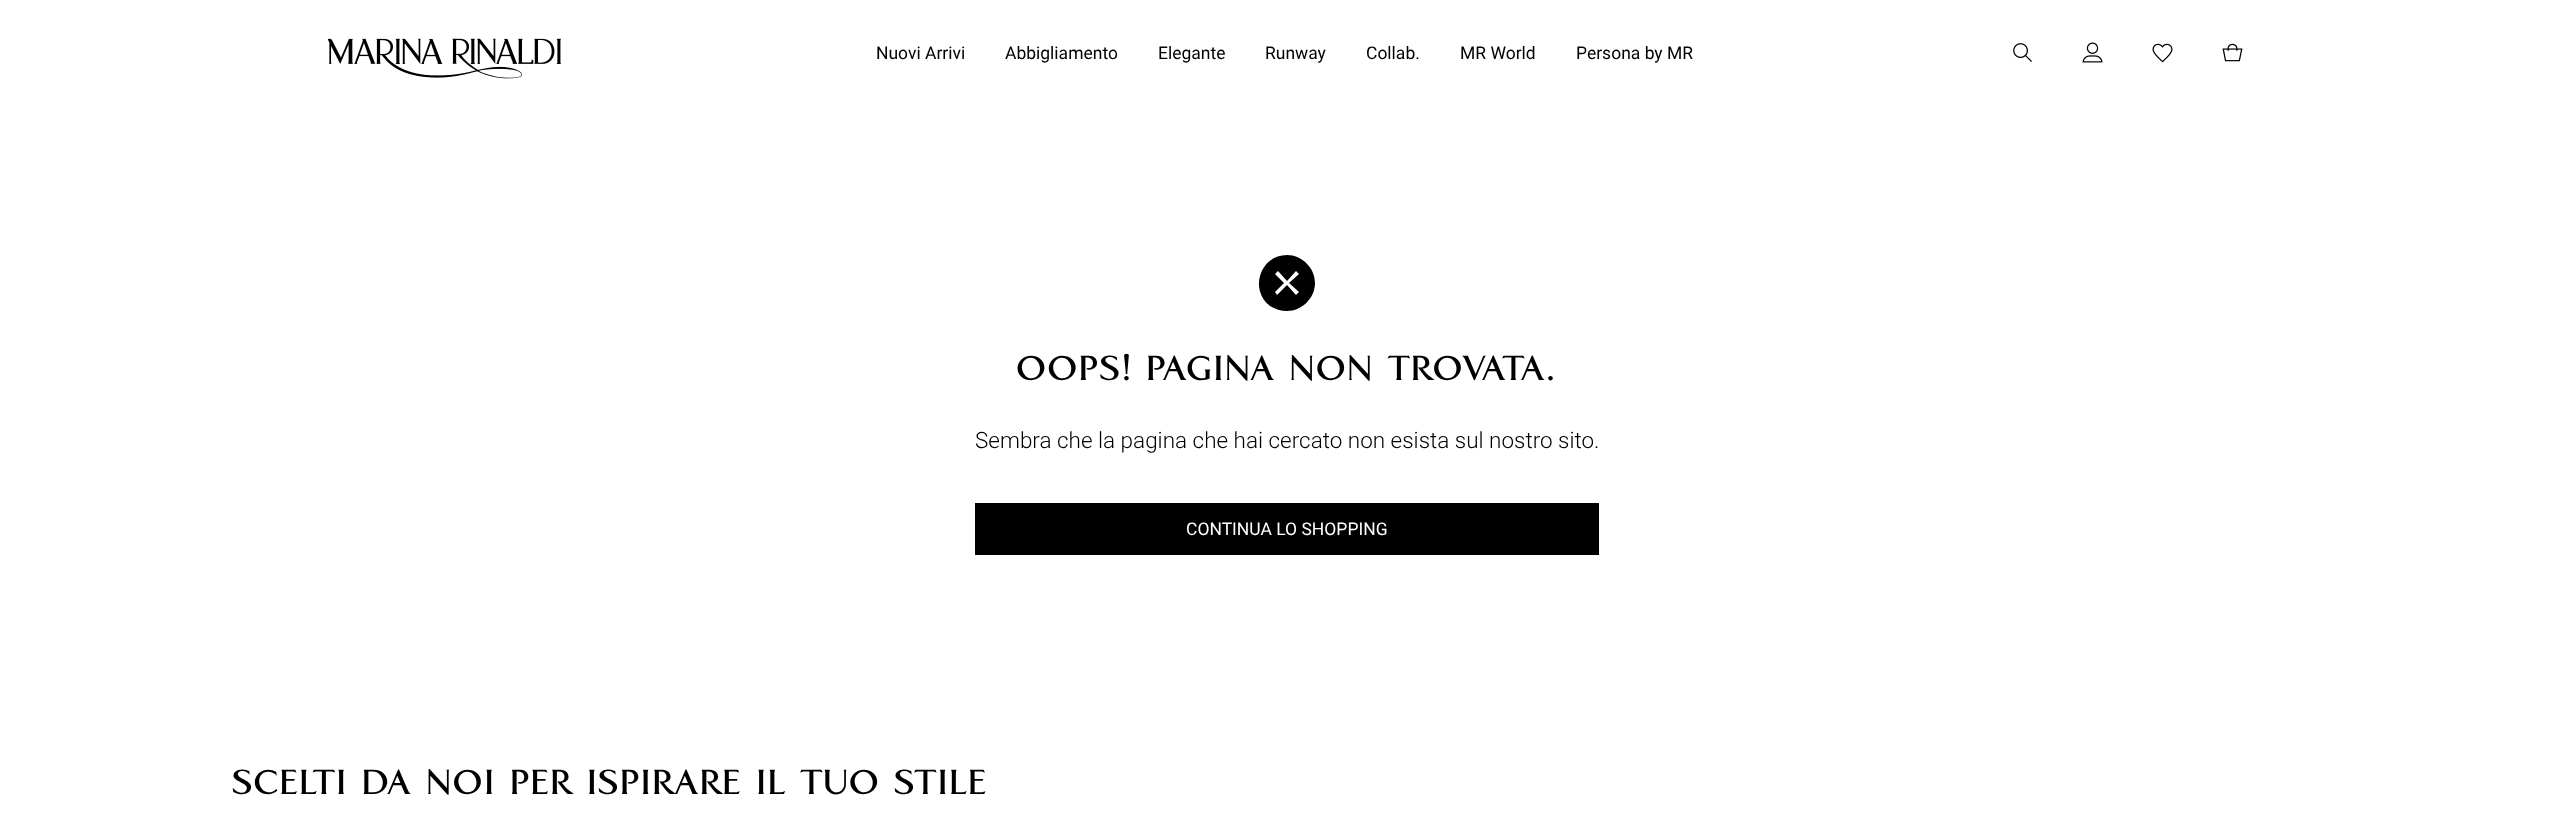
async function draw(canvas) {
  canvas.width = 2573
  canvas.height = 815
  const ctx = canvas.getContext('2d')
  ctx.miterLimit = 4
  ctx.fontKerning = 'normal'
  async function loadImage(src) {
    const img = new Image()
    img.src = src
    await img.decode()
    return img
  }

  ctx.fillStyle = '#fff'
  ctx.fillRect(0, 0, 2573, 815)
  ctx.drawImage(await loadImage('image0.png'), 328, 38, 233, 41)
  ctx.font = '17.5px Roboto'
  ctx.fillStyle = '#000'
  ctx.fillText('Nuovi Arrivi', 876, 59)
  ctx.fillText('Abbigliamento', 1005, 59)
  ctx.fillText('Elegante', 1158, 59)
  ctx.fillText('Runway', 1265, 59)
  ctx.fillText('Collab.', 1366, 59)
  ctx.fillText('MR World', 1460, 59)
  ctx.fillText('Persona by MR', 1576, 59)
  ctx.drawImage(await loadImage('image1.png'), 2013, 43, 19, 19)
  ctx.drawImage(await loadImage('image2.png'), 2082, 42, 21, 21)
  ctx.drawImage(await loadImage('image3.png'), 2152, 43, 21, 20)
  ctx.drawImage(await loadImage('image4.png'), 2222, 43, 21, 19)
  ctx.beginPath()
  ctx.moveTo(1287, 255)
  ctx.bezierCurveTo(1302, 255, 1315, 268, 1315, 283)
  ctx.bezierCurveTo(1315, 298, 1302, 311, 1287, 311)
  ctx.bezierCurveTo(1281, 311, 1275, 309, 1270, 306)
  ctx.bezierCurveTo(1249, 290, 1260, 255, 1287, 255)
  ctx.closePath()
  ctx.moveTo(1289, 283)
  ctx.lineTo(1299, 274)
  ctx.lineTo(1296, 271)
  ctx.lineTo(1287, 281)
  ctx.lineTo(1278, 271)
  ctx.lineTo(1275, 274)
  ctx.lineTo(1284, 283)
  ctx.lineTo(1275, 292)
  ctx.lineTo(1277, 295)
  ctx.lineTo(1287, 285)
  ctx.lineTo(1296, 295)
  ctx.lineTo(1299, 292)
  ctx.closePath()
  ctx.fill()
  ctx.letterSpacing = '1.8px'
  ctx.font = 'bold 45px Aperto'
  ctx.fillText('OOPS! PAGINA NON TROVATA.', 1017, 380)
  ctx.letterSpacing = '0px'
  ctx.font = '300 22.5px Roboto'
  ctx.fillText('Sembra che la pagina che hai cercato non esista sul nostro sito.', 975, 448)
  ctx.fillRect(975, 503, 624, 52)
  ctx.font = '17.5px Roboto'
  ctx.fillStyle = '#fff'
  ctx.fillText('CONTINUA LO SHOPPING', 1186, 535)
  ctx.letterSpacing = '1.8px'
  ctx.font = 'bold 45px Aperto'
  ctx.fillStyle = '#000'
  ctx.fillText('SCELTI DA NOI PER ISPIRARE IL TUO STILE', 233, 794)
}

draw(document.querySelector('canvas'))
